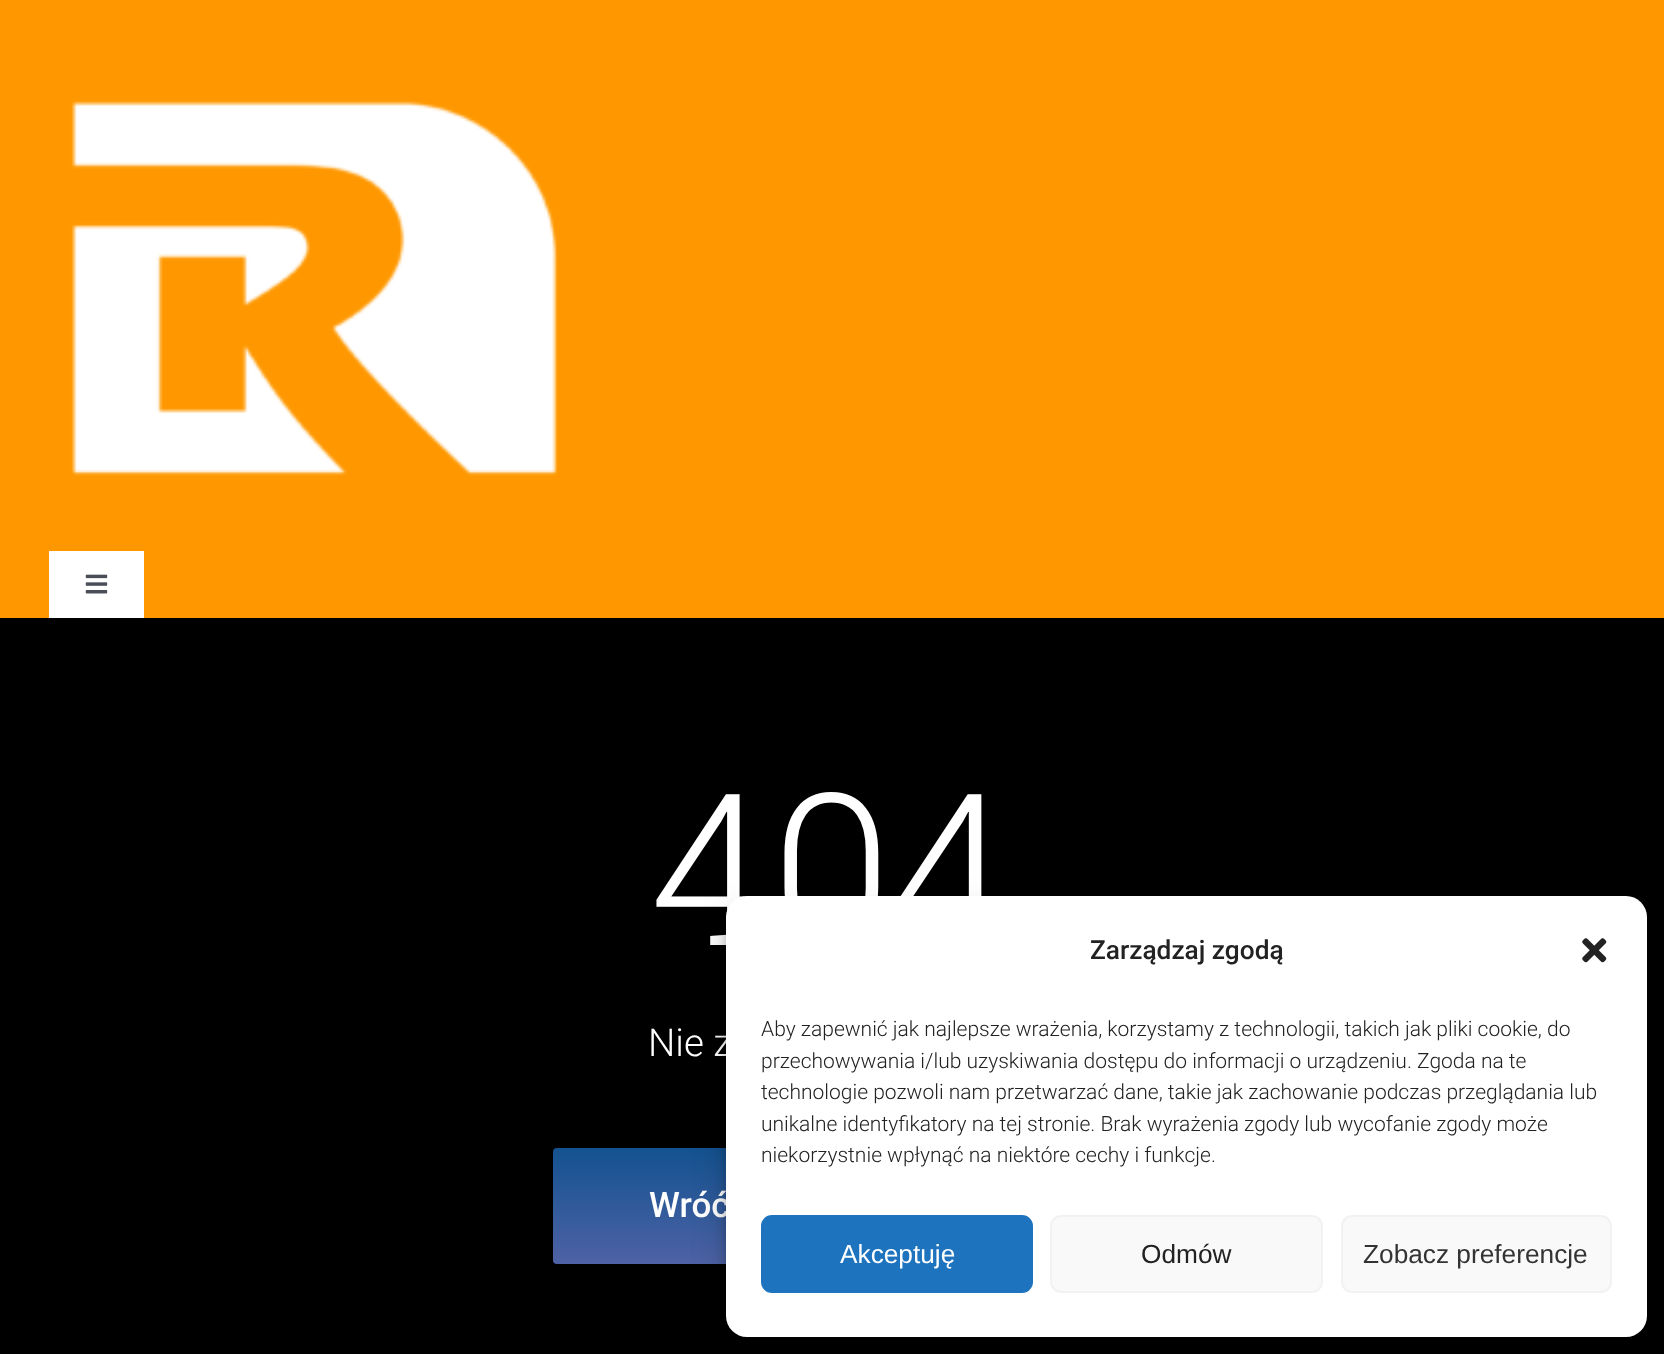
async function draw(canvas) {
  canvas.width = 1664
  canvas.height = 1354
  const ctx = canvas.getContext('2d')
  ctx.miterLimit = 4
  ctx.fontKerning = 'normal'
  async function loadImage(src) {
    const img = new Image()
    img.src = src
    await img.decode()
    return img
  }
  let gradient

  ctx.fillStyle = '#ff9800'
  ctx.fillRect(0, 0, 1664, 1354)
  ctx.drawImage(await loadImage('image0.png'), 71, 101, 487, 375)
  ctx.fillStyle = '#fff'
  ctx.fillRect(49, 551, 95, 67)
  ctx.drawImage(await loadImage('image1.png'), 85, 574, 23, 20)
  ctx.fillStyle = '#000'
  ctx.fillRect(0, 618, 1664, 736)
  ctx.font = '300 212px Roboto Slab'
  ctx.fillStyle = '#fff'
  ctx.fillText('404', 650, 945)
  ctx.font = '300 38.5px Roboto'
  ctx.fillText('Nie z', 648, 1056)
  gradient = ctx.createLinearGradient(832, 1148, 832, 1264)
  gradient.addColorStop(0, '#135290')
  gradient.addColorStop(1, '#4e62a5')
  ctx.fillStyle = gradient
  ctx.beginPath()
  ctx.roundRect(553, 1148, 558, 116, 4)
  ctx.fill()
  ctx.font = '500 35px Roboto'
  ctx.fillStyle = '#fff'
  ctx.fillText('Wróć', 649, 1217)
  ctx.fillStyle = '#0000003b'
  ctx.filter = 'blur(5px)'
  ctx.beginPath()
  ctx.roundRect(726, 907, 921, 441, 21)
  ctx.fill()
  ctx.filter = 'none'
  ctx.fillStyle = '#00000030'
  ctx.filter = 'blur(17.5px)'
  ctx.beginPath()
  ctx.roundRect(726, 914, 921, 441, 21)
  ctx.fill()
  ctx.filter = 'none'
  ctx.fillStyle = '#fff'
  ctx.beginPath()
  ctx.roundRect(726, 896, 921, 441, 21)
  ctx.fill()
  ctx.font = '500 26.25px Roboto'
  ctx.fillStyle = '#222'
  ctx.fillText('Zarządzaj zgodą', 1090, 959)
  ctx.drawImage(await loadImage('image2.png'), 1582, 938, 25, 25)
  ctx.font = '300 21px Roboto'
  ctx.fillText('Aby zapewnić jak najlepsze wrażenia, korzystamy z technologii, takich jak pliki cookie, do', 761, 1036)
  ctx.fillText('przechowywania i/lub uzyskiwania dostępu do informacji o urządzeniu. Zgoda na te', 761, 1068)
  ctx.fillText('technologie pozwoli nam przetwarzać dane, takie jak zachowanie podczas przeglądania lub', 761, 1099)
  ctx.fillText('unikalne identyfikatory na tej stronie. Brak wyrażenia zgody lub wycofanie zgody może', 761, 1131)
  ctx.fillText('niekorzystnie wpłynąć na niektóre cechy i funkcje.', 761, 1162)
  ctx.fillStyle = '#1e73be'
  ctx.beginPath()
  ctx.roundRect(762, 1216, 270, 76, 10)
  ctx.fill()
  ctx.strokeStyle = '#1e73be'
  ctx.lineWidth = 2
  ctx.stroke()
  ctx.font = '26.25px Liberation Sans'
  ctx.fillStyle = '#fff'
  ctx.fillText('Akceptuję', 840, 1263)
  ctx.fillStyle = '#f9f9f9'
  ctx.beginPath()
  ctx.roundRect(1051, 1216, 271, 76, 10)
  ctx.fill()
  ctx.strokeStyle = '#f2f2f2'
  ctx.stroke()
  ctx.fillStyle = '#222'
  ctx.fillText('Odmów', 1141, 1263)
  ctx.fillStyle = '#f9f9f9'
  ctx.beginPath()
  ctx.roundRect(1342, 1216, 269, 76, 10)
  ctx.fill()
  ctx.stroke()
  ctx.fillStyle = '#333'
  ctx.fillText('Zobacz preferencje', 1363, 1263)
}

draw(document.querySelector('canvas'))
